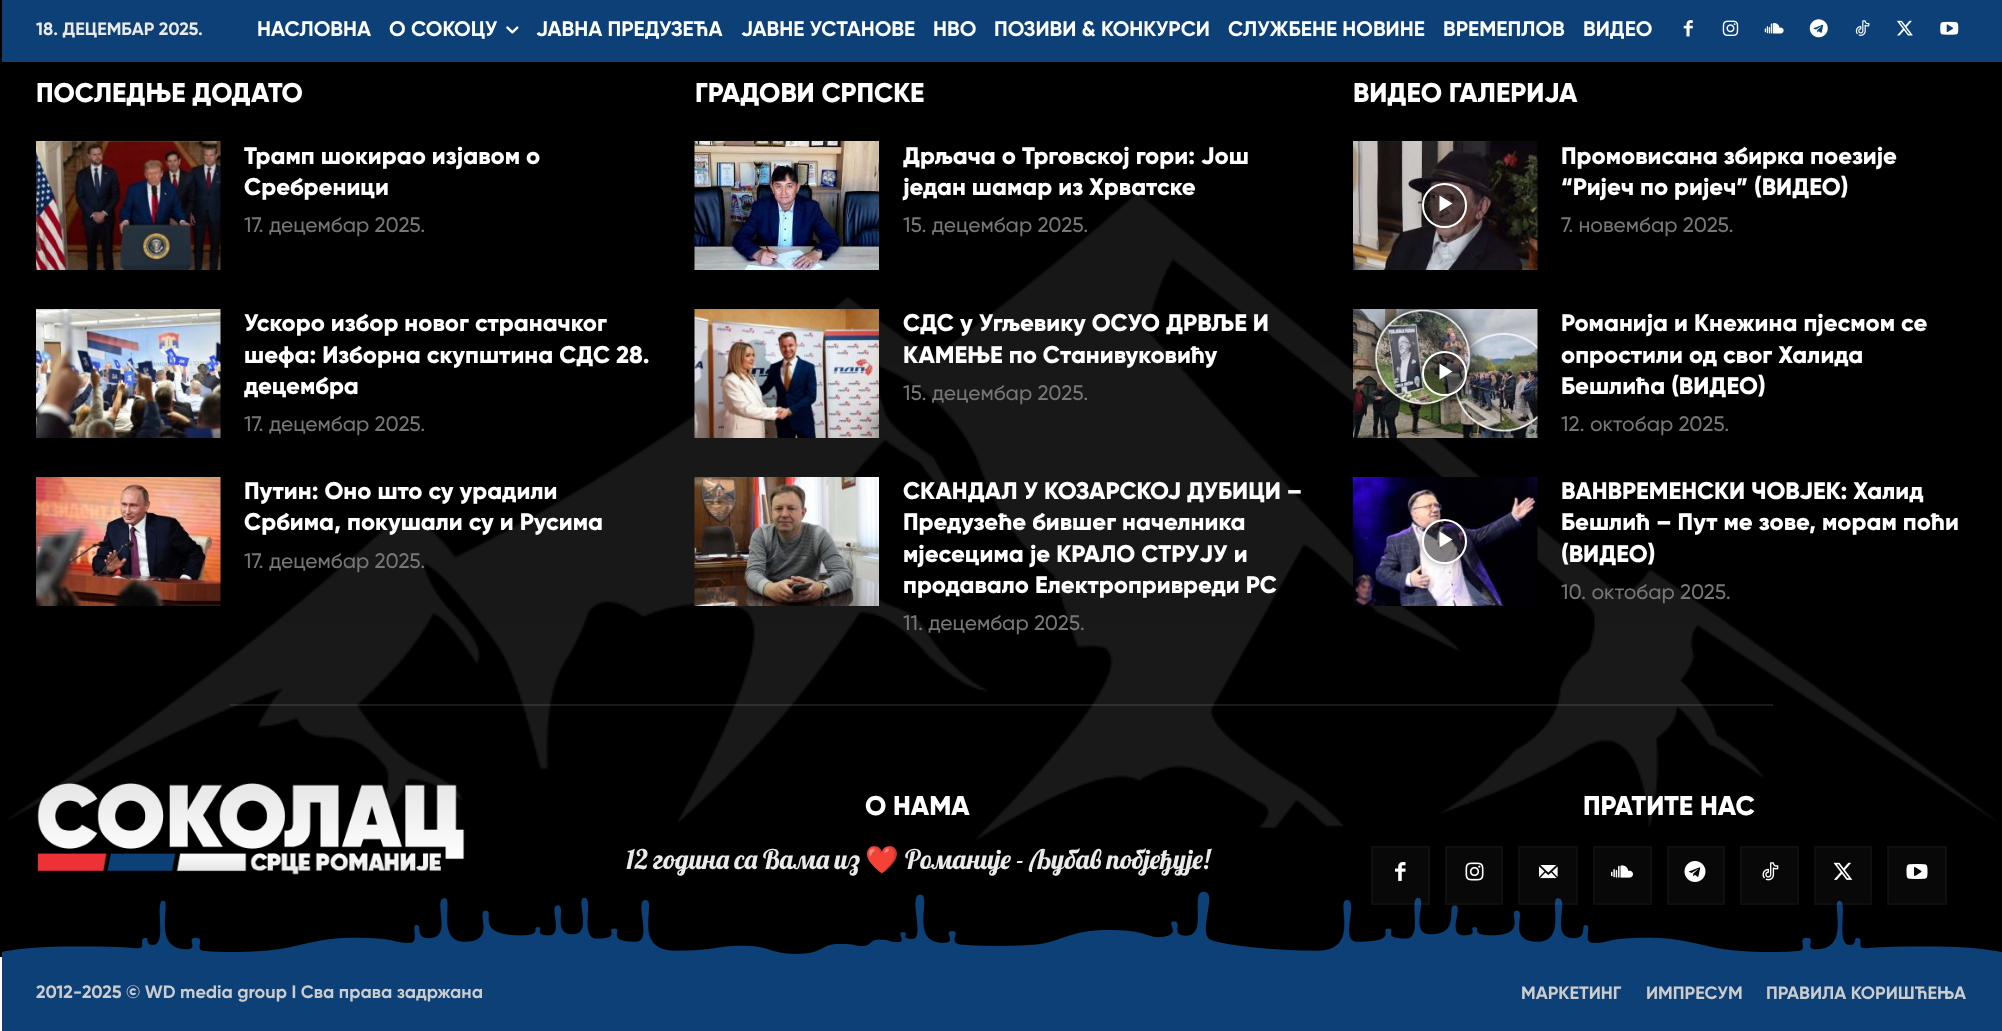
async function draw(canvas) {
  canvas.width = 2002
  canvas.height = 1031
  const ctx = canvas.getContext('2d')
  ctx.miterLimit = 4
  ctx.fontKerning = 'normal'
  async function loadImage(src) {
    const img = new Image()
    img.src = src
    await img.decode()
    return img
  }

  ctx.fillStyle = '#fff'
  ctx.fillRect(0, 0, 2002, 1031)
  ctx.fillStyle = '#000'
  ctx.fillRect(0, 0, 2002, 957)
  ctx.fillStyle = '#0c4076'
  ctx.fillRect(2, 0, 2000, 62)
  ctx.font = 'bold 18px Gilroy'
  ctx.fillStyle = '#eaeaea'
  ctx.fillText('18. ДЕЦЕМБАР 2025.', 36, 35)
  ctx.font = 'bold 21px Gilroy'
  ctx.fillStyle = '#fff'
  ctx.fillText('НАСЛОВНА', 257, 36)
  ctx.fillText('О СОКОЦУ', 389, 36)
  ctx.drawImage(await loadImage('image0.png'), 506, 26, 13, 8)
  ctx.fillText('ЈАВНА ПРЕДУЗЕЋА', 536, 36)
  ctx.fillText('ЈАВНЕ УСТАНОВЕ', 741, 36)
  ctx.fillText('НВО', 933, 36)
  ctx.fillText('ПОЗИВИ & КОНКУРСИ', 994, 36)
  ctx.fillText('СЛУЖБЕНЕ НОВИНЕ', 1228, 36)
  ctx.fillText('ВРЕМЕПЛОВ', 1443, 36)
  ctx.fillText('ВИДЕО', 1583, 36)
  ctx.drawImage(await loadImage('image1.png'), 1683, 20, 10, 17)
  ctx.drawImage(await loadImage('image2.png'), 1722, 20, 17, 16)
  ctx.drawImage(await loadImage('image3.png'), 1764, 23, 20, 11)
  ctx.drawImage(await loadImage('image4.png'), 1809, 19, 19, 19)
  ctx.drawImage(await loadImage('image5.png'), 1855, 20, 15, 16)
  ctx.drawImage(await loadImage('image6.png'), 1896, 20, 17, 16)
  ctx.drawImage(await loadImage('image7.png'), 1940, 21, 19, 14)
  ctx.drawImage(await loadImage('image8.png'), 8, 192, 1988, 648)
  ctx.font = '800 27px Gilroy'
  ctx.fillText('ПОСЛЕДЊЕ ДОДАТО', 36, 102)
  ctx.drawImage(await loadImage('image9.png'), 36, 141, 185, 129)
  ctx.font = '800 24px Gilroy'
  ctx.fillText('Трамп шокирао изјавом о', 244, 164)
  ctx.fillText('Сребреници', 244, 195)
  ctx.font = '500 21px Gilroy'
  ctx.fillStyle = '#767676'
  ctx.fillText('17. децембар 2025.', 244, 232)
  ctx.drawImage(await loadImage('image10.png'), 36, 309, 185, 129)
  ctx.font = '800 24px Gilroy'
  ctx.fillStyle = '#fff'
  ctx.fillText('Ускоро избор новог страначког', 244, 331)
  ctx.fillText('шефа: Изборна скупштина СДС 28.', 244, 363)
  ctx.fillText('децембра', 244, 394)
  ctx.font = '500 21px Gilroy'
  ctx.fillStyle = '#767676'
  ctx.fillText('17. децембар 2025.', 244, 431)
  ctx.drawImage(await loadImage('image11.png'), 36, 477, 185, 129)
  ctx.font = '800 24px Gilroy'
  ctx.fillStyle = '#fff'
  ctx.fillText('Путин: Оно што су урадили', 244, 499)
  ctx.fillText('Србима, покушали су и Русима', 244, 530)
  ctx.font = '500 21px Gilroy'
  ctx.fillStyle = '#767676'
  ctx.fillText('17. децембар 2025.', 244, 568)
  ctx.font = '800 27px Gilroy'
  ctx.fillStyle = '#fff'
  ctx.fillText('ГРАДОВИ СРПСКЕ', 695, 102)
  ctx.drawImage(await loadImage('image12.png'), 694, 141, 185, 129)
  ctx.font = '800 24px Gilroy'
  ctx.fillText('Дрљача о Трговској гори: Још', 903, 164)
  ctx.fillText('један шамар из Хрватске', 903, 195)
  ctx.font = '500 21px Gilroy'
  ctx.fillStyle = '#767676'
  ctx.fillText('15. децембар 2025.', 903, 232)
  ctx.drawImage(await loadImage('image13.png'), 694, 309, 185, 129)
  ctx.font = '800 24px Gilroy'
  ctx.fillStyle = '#fff'
  ctx.fillText('СДС у Угљевику ОСУО ДРВЉЕ И', 903, 331)
  ctx.fillText('КАМЕЊЕ по Станивуковићу', 903, 363)
  ctx.font = '500 21px Gilroy'
  ctx.fillStyle = '#767676'
  ctx.fillText('15. децембар 2025.', 903, 400)
  ctx.drawImage(await loadImage('image14.png'), 694, 477, 185, 129)
  ctx.font = '800 24px Gilroy'
  ctx.fillStyle = '#fff'
  ctx.fillText('СКАНДАЛ У КОЗАРСКОЈ ДУБИЦИ –', 903, 499)
  ctx.fillText('Предузеће бившег начелника', 903, 530)
  ctx.fillText('мјесецима је КРАЛО СТРУЈУ и', 903, 562)
  ctx.fillText('продавало Електропривреди РС', 903, 593)
  ctx.font = '500 21px Gilroy'
  ctx.fillStyle = '#767676'
  ctx.fillText('11. децембар 2025.', 903, 630)
  ctx.font = '800 27px Gilroy'
  ctx.fillStyle = '#fff'
  ctx.fillText('ВИДЕО ГАЛЕРИЈА', 1353, 102)
  ctx.drawImage(await loadImage('image15.png'), 1353, 141, 185, 129)
  ctx.save()
  ctx.beginPath()
  ctx.moveTo(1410, 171)
  ctx.lineTo(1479, 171)
  ctx.lineTo(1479, 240)
  ctx.lineTo(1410, 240)
  ctx.closePath()
  ctx.moveTo(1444.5, 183)
  ctx.bezierCurveTo(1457, 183, 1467, 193, 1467, 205.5)
  ctx.bezierCurveTo(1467, 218, 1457, 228, 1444.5, 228)
  ctx.bezierCurveTo(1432, 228, 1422, 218, 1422, 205.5)
  ctx.bezierCurveTo(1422, 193, 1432, 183, 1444.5, 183)
  ctx.closePath()
  ctx.clip('evenodd')
  ctx.fillStyle = '#00000066'
  ctx.filter = 'blur(3.5px)'
  ctx.beginPath()
  ctx.roundRect(1422, 183, 45, 45, 22.5)
  ctx.fill()
  ctx.filter = 'none'
  ctx.restore()
  ctx.fillStyle = '#0000007a'
  ctx.beginPath()
  ctx.arc(1444.5, 205.5, 21.5, 0, 2 * Math.PI)
  ctx.fill()
  ctx.strokeStyle = '#fff'
  ctx.lineWidth = 2
  ctx.stroke()
  ctx.fillStyle = '#fff'
  ctx.beginPath()
  ctx.moveTo(1439.5, 195.5)
  ctx.lineTo(1439.5, 211.5)
  ctx.lineTo(1452.5, 203.5)
  ctx.closePath()
  ctx.fill()
  ctx.font = '800 24px Gilroy'
  ctx.fillText('Промовисана збирка поезије', 1561, 164)
  ctx.fillText('“Ријеч по ријеч” (ВИДЕО)', 1561, 195)
  ctx.font = '500 21px Gilroy'
  ctx.fillStyle = '#767676'
  ctx.fillText('7. новембар 2025.', 1561, 232)
  ctx.drawImage(await loadImage('image16.png'), 1353, 309, 185, 129)
  ctx.save()
  ctx.beginPath()
  ctx.moveTo(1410, 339)
  ctx.lineTo(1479, 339)
  ctx.lineTo(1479, 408)
  ctx.lineTo(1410, 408)
  ctx.closePath()
  ctx.moveTo(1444.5, 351)
  ctx.bezierCurveTo(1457, 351, 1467, 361, 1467, 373.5)
  ctx.bezierCurveTo(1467, 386, 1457, 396, 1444.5, 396)
  ctx.bezierCurveTo(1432, 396, 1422, 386, 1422, 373.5)
  ctx.bezierCurveTo(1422, 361, 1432, 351, 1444.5, 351)
  ctx.closePath()
  ctx.clip('evenodd')
  ctx.fillStyle = '#00000066'
  ctx.filter = 'blur(3.5px)'
  ctx.beginPath()
  ctx.roundRect(1422, 351, 45, 45, 22.5)
  ctx.fill()
  ctx.filter = 'none'
  ctx.restore()
  ctx.fillStyle = '#0000007a'
  ctx.beginPath()
  ctx.arc(1444.5, 373.5, 21.5, 0, 2 * Math.PI)
  ctx.fill()
  ctx.stroke()
  ctx.fillStyle = '#fff'
  ctx.beginPath()
  ctx.moveTo(1439.5, 363.5)
  ctx.lineTo(1439.5, 379.5)
  ctx.lineTo(1452.5, 371.5)
  ctx.closePath()
  ctx.fill()
  ctx.font = '800 24px Gilroy'
  ctx.fillText('Романија и Кнежина пјесмом се', 1561, 331)
  ctx.fillText('опростили од свог Халида', 1561, 363)
  ctx.fillText('Бешлића (ВИДЕО)', 1561, 394)
  ctx.font = '500 21px Gilroy'
  ctx.fillStyle = '#767676'
  ctx.fillText('12. октобар 2025.', 1561, 431)
  ctx.drawImage(await loadImage('image17.png'), 1353, 477, 185, 129)
  ctx.save()
  ctx.beginPath()
  ctx.moveTo(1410, 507)
  ctx.lineTo(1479, 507)
  ctx.lineTo(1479, 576)
  ctx.lineTo(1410, 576)
  ctx.closePath()
  ctx.moveTo(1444.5, 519)
  ctx.bezierCurveTo(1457, 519, 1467, 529, 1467, 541.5)
  ctx.bezierCurveTo(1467, 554, 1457, 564, 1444.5, 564)
  ctx.bezierCurveTo(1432, 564, 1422, 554, 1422, 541.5)
  ctx.bezierCurveTo(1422, 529, 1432, 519, 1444.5, 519)
  ctx.closePath()
  ctx.clip('evenodd')
  ctx.fillStyle = '#00000066'
  ctx.filter = 'blur(3.5px)'
  ctx.beginPath()
  ctx.roundRect(1422, 519, 45, 45, 22.5)
  ctx.fill()
  ctx.filter = 'none'
  ctx.restore()
  ctx.fillStyle = '#0000007a'
  ctx.beginPath()
  ctx.arc(1444.5, 541.5, 21.5, 0, 2 * Math.PI)
  ctx.fill()
  ctx.stroke()
  ctx.fillStyle = '#fff'
  ctx.beginPath()
  ctx.moveTo(1439.5, 531.5)
  ctx.lineTo(1439.5, 547.5)
  ctx.lineTo(1452.5, 539.5)
  ctx.closePath()
  ctx.fill()
  ctx.font = '800 24px Gilroy'
  ctx.fillText('ВАНВРЕМЕНСКИ ЧОВЈЕК: Халид', 1561, 499)
  ctx.fillText('Бешлић – Пут ме зове, морам поћи', 1561, 530)
  ctx.fillText('(ВИДЕО)', 1561, 562)
  ctx.font = '500 21px Gilroy'
  ctx.fillStyle = '#767676'
  ctx.fillText('10. октобар 2025.', 1561, 599)
  ctx.fillStyle = '#ffffff1a'
  ctx.fillRect(230, 704, 1543, 2)
  ctx.drawImage(await loadImage('image18.png'), 37, 783, 428, 92)
  ctx.font = '800 27px Gilroy'
  ctx.fillStyle = '#fff'
  ctx.fillText('О НАМА', 865, 815)
  ctx.wordSpacing = '-0.5px'
  ctx.font = '27px Lobster'
  ctx.fillStyle = '#eaeaea'
  ctx.fillText('12 година са Вама из', 626, 869)
  ctx.wordSpacing = '0px'
  ctx.font = '27px Noto Color Emoji'
  ctx.fillText('❤️', 865, 869)
  ctx.wordSpacing = '-0.5px'
  ctx.font = '27px Lobster'
  ctx.fillText('Романије - Љубав побјеђује!', 905, 869)
  ctx.wordSpacing = '0px'
  ctx.font = '800 27px Gilroy'
  ctx.fillStyle = '#fff'
  ctx.fillText('ПРАТИТЕ НАС', 1583, 815)
  ctx.drawImage(await loadImage('image27.png'), 2, 891, 2000, 66)
  ctx.fillStyle = '#ffffff08'
  ctx.fillRect(1371, 846, 59, 59)
  ctx.strokeStyle = '#ffffff08'
  ctx.strokeRect(1372, 847, 57, 57)
  ctx.drawImage(await loadImage('image19.png'), 1395, 862, 11, 19)
  ctx.fillStyle = '#080808'
  ctx.beginPath()
  ctx.rect(1446, 847, 56, 57)
  ctx.fill()
  ctx.strokeStyle = '#0f0f0f'
  ctx.stroke()
  ctx.drawImage(await loadImage('image20.png'), 1465, 862, 19, 19)
  ctx.fillStyle = '#ffffff08'
  ctx.fillRect(1518, 846, 60, 59)
  ctx.strokeStyle = '#ffffff08'
  ctx.strokeRect(1519, 847, 58, 57)
  ctx.drawImage(await loadImage('image21.png'), 1539, 865, 19, 14)
  ctx.fillStyle = '#080808'
  ctx.beginPath()
  ctx.rect(1594, 847, 57, 57)
  ctx.fill()
  ctx.strokeStyle = '#0f0f0f'
  ctx.stroke()
  ctx.drawImage(await loadImage('image22.png'), 1611, 865, 22, 13)
  ctx.beginPath()
  ctx.rect(1668, 847, 56, 57)
  ctx.fill()
  ctx.stroke()
  ctx.drawImage(await loadImage('image23.png'), 1684, 861, 22, 21)
  ctx.beginPath()
  ctx.rect(1741, 847, 57, 57)
  ctx.fill()
  ctx.stroke()
  ctx.drawImage(await loadImage('image24.png'), 1762, 862, 17, 19)
  ctx.fillStyle = '#ffffff08'
  ctx.fillRect(1814, 846, 58, 59)
  ctx.strokeStyle = '#ffffff08'
  ctx.strokeRect(1815, 847, 56, 57)
  ctx.drawImage(await loadImage('image25.png'), 1833, 862, 20, 18)
  ctx.fillStyle = '#080808'
  ctx.beginPath()
  ctx.rect(1888, 847, 58, 57)
  ctx.fill()
  ctx.strokeStyle = '#0f0f0f'
  ctx.stroke()
  ctx.drawImage(await loadImage('image26.png'), 1906, 864, 22, 15)
  ctx.fillStyle = '#0c4076'
  ctx.fillRect(2, 957, 2000, 74)
  ctx.font = 'bold 18px Gilroy'
  ctx.fillStyle = '#ccc'
  ctx.fillText('2012-2025 © WD media group I Сва права задржана', 36, 998)
  ctx.fillText('МАРКЕТИНГ', 1521, 999)
  ctx.fillText('ИМПРЕСУМ', 1646, 999)
  ctx.fillText('ПРАВИЛА КОРИШЋЕЊА', 1766, 999)
}

draw(document.querySelector('canvas'))
